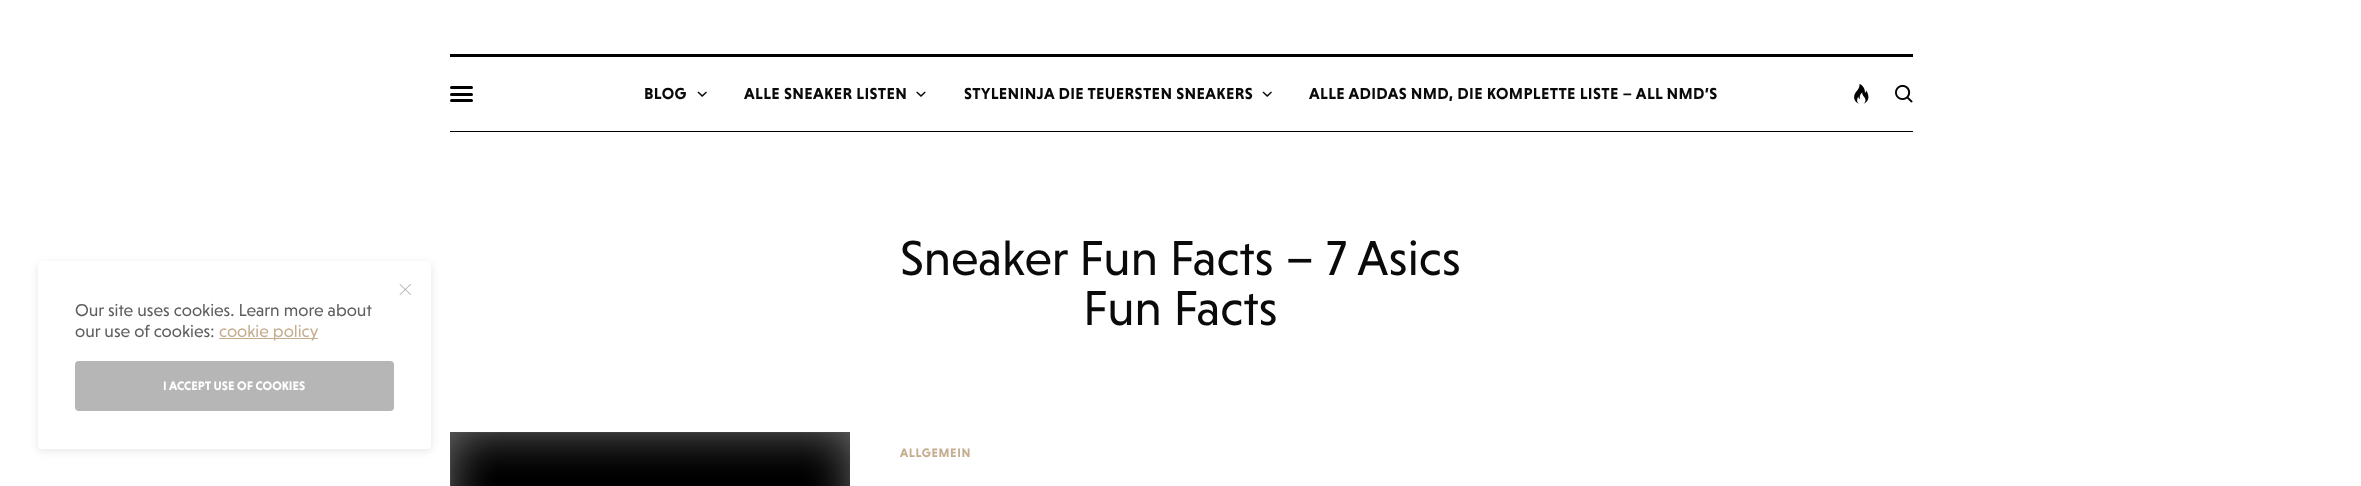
async function draw(canvas) {
  canvas.width = 2361
  canvas.height = 486
  const ctx = canvas.getContext('2d')
  ctx.miterLimit = 4
  ctx.fontKerning = 'normal'
  async function loadImage(src) {
    const img = new Image()
    img.src = src
    await img.decode()
    return img
  }

  ctx.fillStyle = '#fff'
  ctx.fillRect(0, 0, 2361, 486)
  ctx.fillStyle = '#000'
  ctx.fillRect(450, 54, 1463, 3)
  ctx.fillRect(450, 131, 1463, 1)
  ctx.beginPath()
  ctx.roundRect(450, 86, 23, 3, 1.5)
  ctx.fill()
  ctx.beginPath()
  ctx.roundRect(450, 93, 23, 3, 1.5)
  ctx.fill()
  ctx.beginPath()
  ctx.roundRect(450, 99, 23, 3, 1.5)
  ctx.fill()
  ctx.letterSpacing = '0.35px'
  ctx.font = 'bold 16.25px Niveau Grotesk'
  ctx.fillStyle = '#0a0a0a'
  ctx.fillText('BLOG', 644, 99)
  ctx.drawImage(await loadImage('image0.png'), 697, 91, 10, 6)
  ctx.fillText('ALLE SNEAKER LISTEN', 744, 99)
  ctx.drawImage(await loadImage('image1.png'), 916, 91, 10, 6)
  ctx.fillText('STYLENINJA DIE TEUERSTEN SNEAKERS', 964, 99)
  ctx.drawImage(await loadImage('image0.png'), 1262, 91, 10, 6)
  ctx.fillText('ALLE ADIDAS NMD, DIE KOMPLETTE LISTE – ALL NMD’S', 1309, 99)
  ctx.drawImage(await loadImage('image2.png'), 1854, 84, 15, 20)
  ctx.drawImage(await loadImage('image3.png'), 1895, 85, 18, 18)
  ctx.fillStyle = '#0000001a'
  ctx.filter = 'blur(4.5px)'
  ctx.beginPath()
  ctx.roundRect(38, 264, 393, 187, 4)
  ctx.fill()
  ctx.filter = 'none'
  ctx.fillStyle = '#fff'
  ctx.beginPath()
  ctx.roundRect(38, 261, 393, 188, 4)
  ctx.fill()
  ctx.fillStyle = '#a3a3a3'
  ctx.beginPath()
  ctx.moveTo(400, 284)
  ctx.lineTo(411, 294.5)
  ctx.lineTo(410.5, 295)
  ctx.lineTo(399.5, 284.5)
  ctx.closePath()
  ctx.fill()
  ctx.beginPath()
  ctx.moveTo(399.5, 294.5)
  ctx.lineTo(410.5, 284)
  ctx.lineTo(411, 284.5)
  ctx.lineTo(400, 295)
  ctx.closePath()
  ctx.fill()
  ctx.letterSpacing = '0px'
  ctx.font = '17.5px Niveau Grotesk'
  ctx.fillStyle = '#5e5e5e'
  ctx.fillText('Our site uses cookies. Learn more about', 75, 316)
  ctx.fillText('our use of cookies:', 75, 337)
  ctx.fillStyle = '#c5ad90'
  ctx.fillRect(219, 338, 99, 1)
  ctx.fillText('cookie policy', 219, 337)
  ctx.fillStyle = '#b6b6b6'
  ctx.beginPath()
  ctx.roundRect(75, 361, 319, 50, 4)
  ctx.fill()
  ctx.font = 'bold 12.5px Niveau Grotesk'
  ctx.fillStyle = '#fff'
  ctx.fillText('I ACCEPT USE OF COOKIES', 163, 390)
  ctx.font = '50px Niveau Grotesk'
  ctx.fillStyle = '#0a0a0a'
  ctx.fillText('Sneaker Fun Facts – 7 Asics', 900, 275)
  ctx.fillText('Fun Facts', 1083, 325)
  ctx.drawImage(await loadImage('image4.png'), 450, 432, 400, 54)
  ctx.letterSpacing = '0.6px'
  ctx.font = 'bold 12.5px Niveau Grotesk'
  ctx.fillStyle = '#c5ad90'
  ctx.fillText('ALLGEMEIN', 900, 457)
}

draw(document.querySelector('canvas'))
